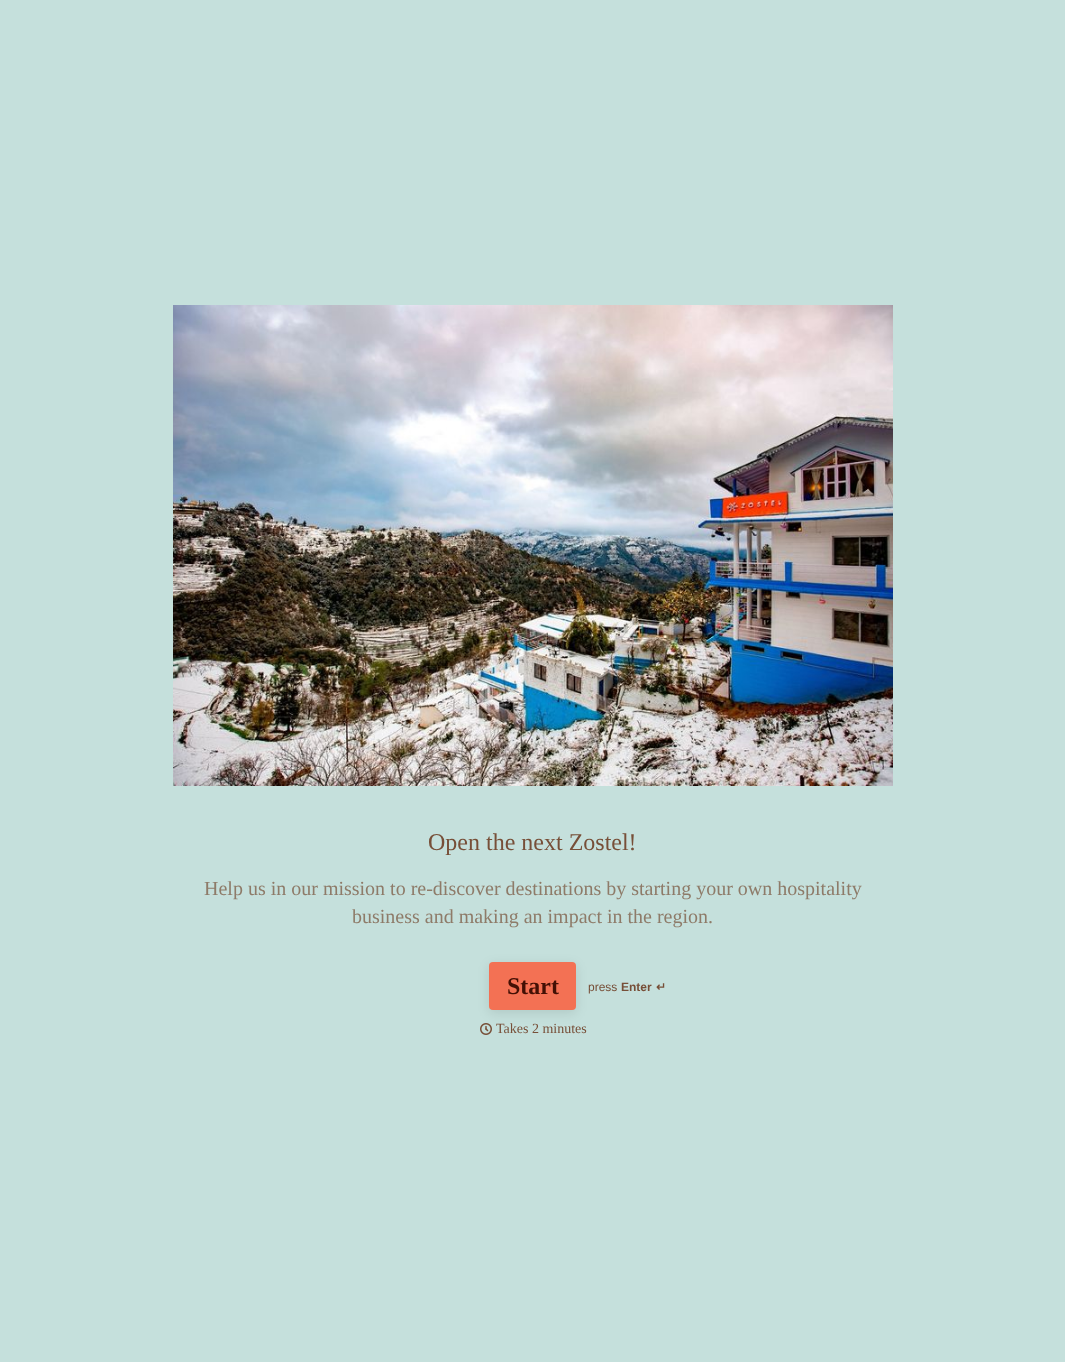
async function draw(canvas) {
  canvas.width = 1065
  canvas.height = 1362
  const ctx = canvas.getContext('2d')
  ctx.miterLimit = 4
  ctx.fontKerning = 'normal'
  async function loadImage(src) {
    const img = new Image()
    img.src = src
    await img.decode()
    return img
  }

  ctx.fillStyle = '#c5e0dc'
  ctx.fillRect(0, 0, 1065, 1362)
  ctx.drawImage(await loadImage('image0.png'), 173, 305, 720, 481)
  ctx.font = '24px Liberation Serif'
  ctx.fillStyle = '#774f38'
  ctx.fillText('Open the next Zostel!', 428, 850)
  ctx.font = '20px Liberation Serif'
  ctx.fillStyle = '#8e7b69'
  ctx.fillText('Help us in our mission to re-discover destinations by starting your own hospitality', 204, 895)
  ctx.fillText('business and making an impact in the region.', 352, 923)
  ctx.fillStyle = '#0000001a'
  ctx.filter = 'blur(6px)'
  ctx.beginPath()
  ctx.roundRect(489, 965, 87, 48, 4)
  ctx.fill()
  ctx.filter = 'none'
  ctx.fillStyle = '#f37154'
  ctx.beginPath()
  ctx.roundRect(489, 962, 87, 48, 4)
  ctx.fill()
  ctx.font = 'bold 24px Liberation Serif'
  ctx.fillStyle = '#431005'
  ctx.fillText('Start', 507, 994)
  ctx.font = '12px Liberation Sans'
  ctx.fillStyle = '#774f38'
  ctx.fillText('press', 588, 991)
  ctx.font = 'bold 12px Liberation Sans'
  ctx.fillText('Enter', 621, 991)
  ctx.font = 'bold 12px DejaVu Sans'
  ctx.fillText('↵', 656, 991)
  ctx.drawImage(await loadImage('image1.png'), 480, 1023, 12, 12)
  ctx.font = '14px Liberation Serif'
  ctx.fillText('Takes 2 minutes', 496, 1033)
}

draw(document.querySelector('canvas'))
